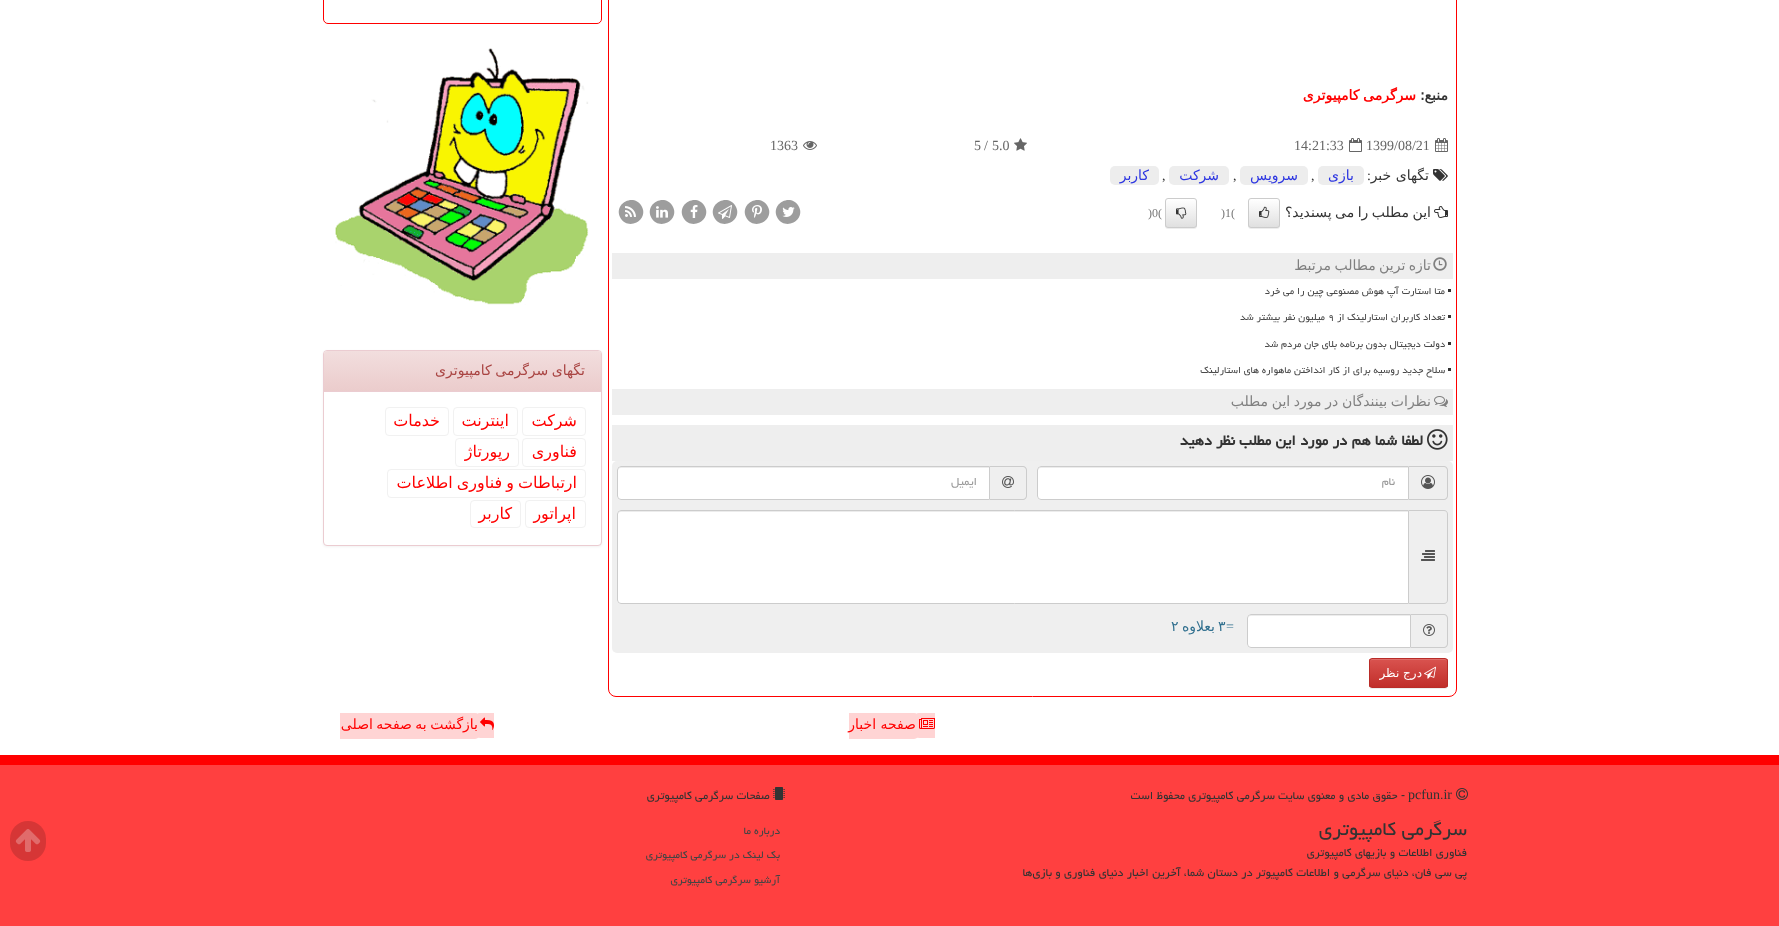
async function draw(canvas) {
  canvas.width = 1779
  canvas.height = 926
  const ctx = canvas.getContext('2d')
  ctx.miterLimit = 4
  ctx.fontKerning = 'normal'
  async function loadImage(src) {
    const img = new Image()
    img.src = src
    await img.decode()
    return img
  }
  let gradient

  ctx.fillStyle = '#fff'
  ctx.fillRect(0, 0, 1779, 926)
  ctx.beginPath()
  ctx.roundRect(608.5, -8.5, 848, 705, 7.5)
  ctx.strokeStyle = '#f00'
  ctx.stroke()
  ctx.direction = 'rtl'
  ctx.font = 'bold 14px DejaVu Sans'
  ctx.fillStyle = '#333'
  ctx.fillText('منبع:', 1448, 100)
  ctx.wordSpacing = '-1px'
  ctx.fillStyle = '#f00'
  ctx.fillText('سرگرمی كامپیوتری', 1416, 100)
  ctx.drawImage(await loadImage('image0.png'), 1435, 138, 13, 14)
  ctx.wordSpacing = '0px'
  ctx.direction = 'ltr'
  ctx.font = '14px Liberation Serif'
  ctx.fillStyle = '#666'
  ctx.fillText('1399/08/21', 1366, 150)
  ctx.drawImage(await loadImage('image1.png'), 1349, 138, 13, 14)
  ctx.fillText('14:21:33', 1294, 150)
  ctx.drawImage(await loadImage('image2.png'), 1014, 138, 13, 13)
  ctx.fillText('5.0', 992, 150)
  ctx.fillText('/', 984, 150)
  ctx.fillText('5', 974, 150)
  ctx.drawImage(await loadImage('image3.png'), 803, 141, 14, 9)
  ctx.fillText('1363', 770, 150)
  ctx.drawImage(await loadImage('image4.png'), 1433, 169, 15, 12)
  ctx.direction = 'rtl'
  ctx.fillStyle = '#333'
  ctx.fillText(':', 1371, 180)
  ctx.font = '14px DejaVu Sans'
  ctx.fillText('تگهای خبر', 1429, 180)
  ctx.fillStyle = '#ededed'
  ctx.beginPath()
  ctx.roundRect(1318, 166, 46, 19, 5)
  ctx.fill()
  ctx.fillStyle = '#2b34e1'
  ctx.fillText('بازی', 1354, 180)
  ctx.direction = 'ltr'
  ctx.font = '14px Liberation Serif'
  ctx.fillStyle = '#333'
  ctx.fillText(',', 1311, 180)
  ctx.fillStyle = '#ededed'
  ctx.beginPath()
  ctx.roundRect(1240, 166, 68, 19, 5)
  ctx.fill()
  ctx.direction = 'rtl'
  ctx.font = '14px DejaVu Sans'
  ctx.fillStyle = '#2b34e1'
  ctx.fillText('سرویس', 1298, 180)
  ctx.direction = 'ltr'
  ctx.font = '14px Liberation Serif'
  ctx.fillStyle = '#333'
  ctx.fillText(',', 1233, 180)
  ctx.fillStyle = '#ededed'
  ctx.beginPath()
  ctx.roundRect(1169, 166, 60, 19, 5)
  ctx.fill()
  ctx.direction = 'rtl'
  ctx.font = '14px DejaVu Sans'
  ctx.fillStyle = '#2b34e1'
  ctx.fillText('شركت', 1219, 180)
  ctx.direction = 'ltr'
  ctx.font = '14px Liberation Serif'
  ctx.fillStyle = '#333'
  ctx.fillText(',', 1162, 180)
  ctx.fillStyle = '#ededed'
  ctx.beginPath()
  ctx.roundRect(1110, 166, 49, 19, 5)
  ctx.fill()
  ctx.direction = 'rtl'
  ctx.font = '14px DejaVu Sans'
  ctx.fillStyle = '#2b34e1'
  ctx.fillText('كاربر', 1149, 180)
  ctx.drawImage(await loadImage('image5.png'), 1434, 206, 14, 12)
  ctx.wordSpacing = '-1px'
  ctx.fillStyle = '#333'
  ctx.fillText('این مطلب را می پسندید؟', 1431, 217)
  ctx.fillStyle = '#00000012'
  ctx.filter = 'blur(0.5px)'
  ctx.beginPath()
  ctx.roundRect(1248, 199, 32, 30, 3)
  ctx.fill()
  ctx.filter = 'none'
  ctx.save()
  ctx.beginPath()
  ctx.roundRect(1248, 198, 32, 30, 3)
  ctx.clip()
  gradient = ctx.createLinearGradient(1264, 199, 1264, 227)
  gradient.addColorStop(0, '#fff')
  gradient.addColorStop(1, '#e0e0e0')
  ctx.fillStyle = gradient
  ctx.fillRect(1248, 199, 32, 28)
  ctx.restore()
  ctx.beginPath()
  ctx.roundRect(1248.5, 198.5, 31, 29, 2.5)
  ctx.strokeStyle = '#ccc'
  ctx.stroke()
  ctx.drawImage(await loadImage('image6.png'), 1259, 206, 11, 12)
  ctx.wordSpacing = '0px'
  ctx.direction = 'ltr'
  ctx.font = '12px Liberation Serif'
  ctx.fillStyle = '#777'
  ctx.fillText(')1(', 1221, 217)
  ctx.fillStyle = '#00000012'
  ctx.filter = 'blur(0.5px)'
  ctx.beginPath()
  ctx.roundRect(1165, 199, 32, 30, 3)
  ctx.fill()
  ctx.filter = 'none'
  ctx.save()
  ctx.beginPath()
  ctx.roundRect(1165, 198, 32, 30, 3)
  ctx.clip()
  gradient = ctx.createLinearGradient(1181, 199, 1181, 227)
  gradient.addColorStop(0, '#fff')
  gradient.addColorStop(1, '#e0e0e0')
  ctx.fillStyle = gradient
  ctx.fillRect(1165, 199, 32, 28)
  ctx.restore()
  ctx.beginPath()
  ctx.roundRect(1165.5, 198.5, 31, 29, 2.5)
  ctx.stroke()
  ctx.drawImage(await loadImage('image7.png'), 1176, 207, 11, 12)
  ctx.fillStyle = '#777'
  ctx.fillText(')0(', 1148, 217)
  ctx.fillStyle = '#9d9d9d'
  ctx.beginPath()
  ctx.moveTo(798.5, 206)
  ctx.bezierCurveTo(806.5, 219.5, 785.5, 231.5, 777.5, 218)
  ctx.bezierCurveTo(769.5, 204.5, 790.5, 192.5, 798.5, 206)
  ctx.closePath()
  ctx.fill()
  ctx.drawImage(await loadImage('image8.png'), 782, 207, 13, 10)
  ctx.beginPath()
  ctx.moveTo(767.5, 206)
  ctx.bezierCurveTo(775.5, 219.5, 754.5, 231.5, 746.5, 218)
  ctx.bezierCurveTo(738.5, 204.5, 759.5, 192.5, 767.5, 206)
  ctx.closePath()
  ctx.fill()
  ctx.drawImage(await loadImage('image9.png'), 752, 205, 10, 13)
  ctx.beginPath()
  ctx.moveTo(735.5, 206)
  ctx.bezierCurveTo(743.5, 219.5, 722.5, 231.5, 714.5, 218)
  ctx.bezierCurveTo(706.5, 204.5, 727.5, 192.5, 735.5, 206)
  ctx.closePath()
  ctx.fill()
  ctx.drawImage(await loadImage('image10.png'), 718, 205, 14, 14)
  ctx.beginPath()
  ctx.moveTo(704.5, 206)
  ctx.bezierCurveTo(712.5, 219.5, 691.5, 231.5, 683.5, 218)
  ctx.bezierCurveTo(675.5, 204.5, 696.5, 192.5, 704.5, 206)
  ctx.closePath()
  ctx.fill()
  ctx.drawImage(await loadImage('image11.png'), 690, 205, 8, 13)
  ctx.beginPath()
  ctx.moveTo(672.5, 206)
  ctx.bezierCurveTo(680.5, 219.5, 659.5, 231.5, 651.5, 218)
  ctx.bezierCurveTo(643.5, 204.5, 664.5, 192.5, 672.5, 206)
  ctx.closePath()
  ctx.fill()
  ctx.drawImage(await loadImage('image12.png'), 656, 206, 12, 12)
  ctx.beginPath()
  ctx.moveTo(641.5, 206)
  ctx.bezierCurveTo(649.5, 219.5, 628.5, 231.5, 620.5, 218)
  ctx.bezierCurveTo(612.5, 204.5, 633.5, 192.5, 641.5, 206)
  ctx.closePath()
  ctx.fill()
  ctx.drawImage(await loadImage('image13.png'), 625, 206, 11, 11)
  ctx.fillStyle = '#eee'
  ctx.fillRect(612, 253, 841, 26)
  ctx.drawImage(await loadImage('image14.png'), 1433, 257, 14, 14)
  ctx.wordSpacing = '-1px'
  ctx.direction = 'rtl'
  ctx.font = '14px DejaVu Sans'
  ctx.fillStyle = '#808080'
  ctx.fillText('تازه ترین مطالب مرتبط', 1431, 270)
  ctx.fillStyle = '#333'
  ctx.fillRect(1448, 289, 3, 3)
  ctx.wordSpacing = '0px'
  ctx.font = '12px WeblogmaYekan'
  ctx.fillStyle = '#4a4a4a'
  ctx.fillText('متا استارت آپ هوش مصنوعی چین را می خرد', 1445, 294)
  ctx.fillStyle = '#333'
  ctx.fillRect(1448, 315, 3, 3)
  ctx.fillStyle = '#4a4a4a'
  ctx.fillText('تعداد کاربران استارلینک از', 1445, 320)
  ctx.direction = 'ltr'
  ctx.fillText('۹', 1328, 320)
  ctx.direction = 'rtl'
  ctx.fillText('میلیون نفر بیشتر شد', 1325, 320)
  ctx.fillStyle = '#333'
  ctx.fillRect(1448, 342, 3, 3)
  ctx.fillStyle = '#4a4a4a'
  ctx.fillText('دولت دیجیتال بدون برنامه بلای جان مردم شد', 1445, 347)
  ctx.fillStyle = '#333'
  ctx.fillRect(1448, 368, 3, 3)
  ctx.fillStyle = '#4a4a4a'
  ctx.fillText('سلاح جدید روسیه برای از کار انداختن ماهواره های استارلینک', 1445, 373)
  ctx.fillStyle = '#eee'
  ctx.fillRect(612, 389, 841, 26)
  ctx.drawImage(await loadImage('image15.png'), 1434, 396, 14, 11)
  ctx.wordSpacing = '-0.75px'
  ctx.font = '14px DejaVu Sans'
  ctx.fillStyle = '#808080'
  ctx.fillText('نظرات بینندگان در مورد این مطلب', 1431, 406)
  ctx.fillStyle = '#eee'
  ctx.fillRect(612, 425, 841, 36)
  ctx.drawImage(await loadImage('image16.png'), 1427, 429, 21, 21)
  ctx.wordSpacing = '0px'
  ctx.font = 'bold 18px WeblogmaYekan'
  ctx.fillStyle = '#333'
  ctx.fillText('لطفا شما هم', 1423, 445)
  ctx.fillText('در مورد این مطلب', 1347, 445)
  ctx.fillText('نظر دهید', 1235, 445)
  ctx.fillStyle = '#efefef'
  ctx.beginPath()
  ctx.roundRect(612, 461, 841, 192, 5)
  ctx.fill()
  ctx.fillStyle = '#ccc'
  ctx.beginPath()
  ctx.moveTo(1409, 466)
  ctx.lineTo(1444, 466)
  ctx.bezierCurveTo(1446, 466, 1448, 468, 1448, 470)
  ctx.lineTo(1448, 496)
  ctx.bezierCurveTo(1448, 498, 1446, 500, 1444, 500)
  ctx.lineTo(1409, 500)
  ctx.closePath()
  ctx.moveTo(1409, 467)
  ctx.lineTo(1444, 467)
  ctx.bezierCurveTo(1445.5, 467, 1447, 468.5, 1447, 470)
  ctx.lineTo(1447, 496)
  ctx.bezierCurveTo(1447, 497.5, 1445.5, 499, 1444, 499)
  ctx.lineTo(1409, 499)
  ctx.closePath()
  ctx.fill('evenodd')
  ctx.drawImage(await loadImage('image17.png'), 1421, 475, 14, 14)
  ctx.fillStyle = '#fff'
  ctx.beginPath()
  ctx.roundRect(1037, 466, 372, 34, [4, 0, 0, 4])
  ctx.fill()
  ctx.fillStyle = '#ececec'
  ctx.beginPath()
  ctx.moveTo(1041, 468)
  ctx.lineTo(1408, 468)
  ctx.lineTo(1408, 467)
  ctx.lineTo(1041, 467)
  ctx.bezierCurveTo(1039, 467, 1038, 468, 1038, 470)
  ctx.lineTo(1038, 471)
  ctx.bezierCurveTo(1038, 469, 1039, 468, 1041, 468)
  ctx.closePath()
  ctx.fill()
  ctx.beginPath()
  ctx.roundRect(1037.5, 466.5, 371, 33, [3.5, 0, 0, 3.5])
  ctx.stroke()
  ctx.font = '14px WeblogmaYekan'
  ctx.fillStyle = '#999'
  ctx.fillText('نام', 1395, 485)
  ctx.fillStyle = '#ccc'
  ctx.beginPath()
  ctx.moveTo(990, 466)
  ctx.lineTo(1023, 466)
  ctx.bezierCurveTo(1025, 466, 1027, 468, 1027, 470)
  ctx.lineTo(1027, 496)
  ctx.bezierCurveTo(1027, 498, 1025, 500, 1023, 500)
  ctx.lineTo(990, 500)
  ctx.closePath()
  ctx.moveTo(990, 467)
  ctx.lineTo(1023, 467)
  ctx.bezierCurveTo(1024.5, 467, 1026, 468.5, 1026, 470)
  ctx.lineTo(1026, 496)
  ctx.bezierCurveTo(1026, 497.5, 1024.5, 499, 1023, 499)
  ctx.lineTo(990, 499)
  ctx.closePath()
  ctx.fill('evenodd')
  ctx.drawImage(await loadImage('image18.png'), 1002, 476, 12, 12)
  ctx.fillStyle = '#fff'
  ctx.beginPath()
  ctx.roundRect(617, 466, 373, 34, [4, 0, 0, 4])
  ctx.fill()
  ctx.fillStyle = '#ececec'
  ctx.beginPath()
  ctx.moveTo(621, 468)
  ctx.lineTo(989, 468)
  ctx.lineTo(989, 467)
  ctx.lineTo(621, 467)
  ctx.bezierCurveTo(619, 467, 618, 468, 618, 470)
  ctx.lineTo(618, 471)
  ctx.bezierCurveTo(618, 469, 619, 468, 621, 468)
  ctx.closePath()
  ctx.fill()
  ctx.beginPath()
  ctx.roundRect(617.5, 466.5, 372, 33, [3.5, 0, 0, 3.5])
  ctx.stroke()
  ctx.fillStyle = '#999'
  ctx.fillText('ایمیل', 977, 485)
  ctx.fillStyle = '#ccc'
  ctx.beginPath()
  ctx.moveTo(1409, 510)
  ctx.lineTo(1444, 510)
  ctx.bezierCurveTo(1446, 510, 1448, 512, 1448, 514)
  ctx.lineTo(1448, 600)
  ctx.bezierCurveTo(1448, 602, 1446, 604, 1444, 604)
  ctx.lineTo(1409, 604)
  ctx.closePath()
  ctx.moveTo(1409, 511)
  ctx.lineTo(1444, 511)
  ctx.bezierCurveTo(1446, 511, 1447, 512, 1447, 514)
  ctx.lineTo(1447, 600)
  ctx.bezierCurveTo(1447, 602, 1446, 603, 1444, 603)
  ctx.lineTo(1409, 603)
  ctx.closePath()
  ctx.fill('evenodd')
  ctx.drawImage(await loadImage('image19.png'), 1421, 550, 14, 11)
  ctx.fillStyle = '#fff'
  ctx.beginPath()
  ctx.roundRect(617, 510, 792, 94, [4, 0, 0, 4])
  ctx.fill()
  ctx.fillStyle = '#ececec'
  ctx.beginPath()
  ctx.moveTo(621, 512)
  ctx.lineTo(1408, 512)
  ctx.lineTo(1408, 511)
  ctx.lineTo(621, 511)
  ctx.bezierCurveTo(619, 511, 618, 513, 618, 515)
  ctx.bezierCurveTo(618, 513, 619, 512, 621, 512)
  ctx.closePath()
  ctx.fill()
  ctx.beginPath()
  ctx.roundRect(617.5, 510.5, 791, 93, [3.5, 0, 0, 3.5])
  ctx.stroke()
  ctx.fillStyle = '#ccc'
  ctx.beginPath()
  ctx.moveTo(1411, 614)
  ctx.lineTo(1444, 614)
  ctx.bezierCurveTo(1446, 614, 1448, 616, 1448, 618)
  ctx.lineTo(1448, 644)
  ctx.bezierCurveTo(1448, 646, 1446, 648, 1444, 648)
  ctx.lineTo(1411, 648)
  ctx.closePath()
  ctx.moveTo(1411, 615)
  ctx.lineTo(1444, 615)
  ctx.bezierCurveTo(1445.5, 615, 1447, 616.5, 1447, 618)
  ctx.lineTo(1447, 644)
  ctx.bezierCurveTo(1447, 645.5, 1445.5, 647, 1444, 647)
  ctx.lineTo(1411, 647)
  ctx.closePath()
  ctx.fill('evenodd')
  ctx.drawImage(await loadImage('image20.png'), 1423, 624, 12, 12)
  ctx.fillStyle = '#fff'
  ctx.beginPath()
  ctx.roundRect(1247, 614, 164, 34, [4, 0, 0, 4])
  ctx.fill()
  ctx.fillStyle = '#ececec'
  ctx.beginPath()
  ctx.moveTo(1251, 616)
  ctx.lineTo(1410, 616)
  ctx.lineTo(1410, 615)
  ctx.lineTo(1251, 615)
  ctx.bezierCurveTo(1249, 615, 1248, 617, 1248, 619)
  ctx.bezierCurveTo(1248, 617, 1249, 616, 1251, 616)
  ctx.closePath()
  ctx.fill()
  ctx.beginPath()
  ctx.roundRect(1247.5, 614.5, 163, 33, [3.5, 0, 0, 3.5])
  ctx.stroke()
  ctx.direction = 'ltr'
  ctx.font = '14px Liberation Serif'
  ctx.fillStyle = '#31708f'
  ctx.fillText('=', 1226, 631)
  ctx.font = '14px DejaVu Sans'
  ctx.fillText('۳', 1218, 631)
  ctx.direction = 'rtl'
  ctx.fillText('بعلاوه', 1215, 631)
  ctx.direction = 'ltr'
  ctx.fillText('۲', 1171, 631)
  ctx.fillStyle = '#00000012'
  ctx.filter = 'blur(0.5px)'
  ctx.beginPath()
  ctx.roundRect(1369, 659, 79, 30, 3)
  ctx.fill()
  ctx.filter = 'none'
  ctx.save()
  ctx.beginPath()
  ctx.roundRect(1369, 658, 79, 30, 3)
  ctx.clip()
  gradient = ctx.createLinearGradient(1409, 659, 1409, 687)
  gradient.addColorStop(0, '#d9534f')
  gradient.addColorStop(1, '#c12e2a')
  ctx.fillStyle = gradient
  ctx.fillRect(1369, 659, 79, 28)
  ctx.restore()
  ctx.fillStyle = '#df6c69'
  ctx.beginPath()
  ctx.moveTo(1372, 660)
  ctx.lineTo(1445, 660)
  ctx.bezierCurveTo(1446, 660, 1447, 661, 1447, 662)
  ctx.bezierCurveTo(1447, 656, 1436, 659, 1433, 659)
  ctx.lineTo(1384, 659)
  ctx.bezierCurveTo(1381, 659, 1370, 656, 1370, 662)
  ctx.bezierCurveTo(1370, 661, 1371, 660, 1372, 660)
  ctx.closePath()
  ctx.fill()
  ctx.beginPath()
  ctx.roundRect(1369.5, 658.5, 78, 29, 2.5)
  ctx.strokeStyle = '#b92c28'
  ctx.stroke()
  ctx.drawImage(await loadImage('image21.png'), 1424, 666, 12, 13)
  ctx.direction = 'rtl'
  ctx.font = '12px DejaVu Sans'
  ctx.fillStyle = '#fff'
  ctx.fillText('درج نظر', 1422, 677)
  ctx.beginPath()
  ctx.roundRect(323.5, -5.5, 278, 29, 4.5)
  ctx.strokeStyle = '#f00'
  ctx.stroke()
  ctx.drawImage(await loadImage('image22.png'), 335, 48, 254, 257)
  ctx.fillStyle = '#0000000d'
  ctx.filter = 'blur(1px)'
  ctx.beginPath()
  ctx.roundRect(323, 351, 279, 196, 4)
  ctx.fill()
  ctx.filter = 'none'
  ctx.fillStyle = '#fff'
  ctx.beginPath()
  ctx.roundRect(323.5, 350.5, 278, 195, 3.5)
  ctx.fill()
  ctx.strokeStyle = '#ebccd1'
  ctx.stroke()
  gradient = ctx.createLinearGradient(463, 351, 463, 391)
  gradient.addColorStop(0, '#f2dede')
  gradient.addColorStop(1, '#ebcccc')
  ctx.fillStyle = gradient
  ctx.beginPath()
  ctx.roundRect(324, 351, 277, 40, [3, 3, 0, 0])
  ctx.fill()
  ctx.fillStyle = '#ebccd1'
  ctx.fillRect(324, 391, 277, 1)
  ctx.wordSpacing = '-1px'
  ctx.font = '14px DejaVu Sans'
  ctx.fillStyle = '#a94442'
  ctx.fillText('تگهای سرگرمی كامپیوتری', 585, 375)
  ctx.beginPath()
  ctx.roundRect(522.5, 407.5, 63, 28, 3.5)
  ctx.strokeStyle = '#f1f1f1'
  ctx.stroke()
  ctx.wordSpacing = '0px'
  ctx.font = '16px DejaVu Sans'
  ctx.fillStyle = '#f00'
  ctx.fillText('شركت', 577, 426)
  ctx.beginPath()
  ctx.roundRect(453.5, 407.5, 64, 28, 3.5)
  ctx.stroke()
  ctx.fillText('اینترنت', 509, 426)
  ctx.beginPath()
  ctx.roundRect(385.5, 407.5, 63, 28, 3.5)
  ctx.stroke()
  ctx.fillText('خدمات', 440, 426)
  ctx.beginPath()
  ctx.roundRect(522.5, 438.5, 63, 28, 3.5)
  ctx.stroke()
  ctx.fillText('فناوری', 577, 457)
  ctx.beginPath()
  ctx.roundRect(455.5, 438.5, 63, 28, 3.5)
  ctx.stroke()
  ctx.fillText('رپورتاژ', 510, 457)
  ctx.beginPath()
  ctx.roundRect(387.5, 469.5, 198, 28, 3.5)
  ctx.stroke()
  ctx.wordSpacing = '-1px'
  ctx.fillText('ارتباطات و فناوری اطلاعات', 577, 488)
  ctx.beginPath()
  ctx.roundRect(525.5, 500.5, 60, 27, 3.5)
  ctx.stroke()
  ctx.wordSpacing = '0px'
  ctx.fillText('اپراتور', 576, 519)
  ctx.beginPath()
  ctx.roundRect(470.5, 500.5, 50, 27, 3.5)
  ctx.stroke()
  ctx.fillText('كاربر', 512, 519)
  ctx.fillStyle = '#ffd4d4'
  ctx.beginPath()
  ctx.roundRect(914, 713, 21, 25, [5, 0, 0, 5])
  ctx.fill()
  ctx.beginPath()
  ctx.roundRect(849, 713, 70, 26, [0, 5, 5, 0])
  ctx.fill()
  ctx.drawImage(await loadImage('image23.png'), 919, 718, 16, 11)
  ctx.font = '14px DejaVu Sans'
  ctx.fillStyle = '#f00'
  ctx.fillText('صفحه اخبار', 916, 729)
  ctx.fillStyle = '#ffd4d4'
  ctx.beginPath()
  ctx.roundRect(475, 713, 19, 25, [5, 0, 0, 5])
  ctx.fill()
  ctx.beginPath()
  ctx.roundRect(340, 713, 140, 26, [0, 5, 5, 0])
  ctx.fill()
  ctx.drawImage(await loadImage('image24.png'), 480, 717, 14, 13)
  ctx.wordSpacing = '-1px'
  ctx.fillStyle = '#f00'
  ctx.fillText('بازگشت به صفحه اصلی', 478, 729)
  ctx.fillStyle = '#ff4040'
  ctx.fillRect(0, 765, 1779, 161)
  ctx.fillStyle = '#d63636'
  ctx.beginPath()
  ctx.roundRect(10, 821, 36, 40, 18)
  ctx.fill()
  ctx.drawImage(await loadImage('image25.png'), 15, 829, 26, 23)
  ctx.fillStyle = '#f00'
  ctx.fillRect(0, 755, 1779, 10)
  ctx.drawImage(await loadImage('image26.png'), 1456, 788, 12, 12)
  ctx.wordSpacing = '0px'
  ctx.direction = 'ltr'
  ctx.font = '14px Liberation Serif'
  ctx.fillStyle = '#333'
  ctx.fillText('pcfun ir', 1408, 799)
  ctx.direction = 'rtl'
  ctx.font = '14px WeblogmaYekan'
  ctx.fillText('- حقوق مادی و معنوی سایت سرگرمی كامپیوتری محفوظ است', 1405, 799)
  ctx.direction = 'ltr'
  ctx.fillText('.', 1440, 799)
  ctx.direction = 'rtl'
  ctx.font = '24px WeblogmaYekan'
  ctx.fillText('سرگرمی كامپیوتری', 1467, 835)
  ctx.font = '14px WeblogmaYekan'
  ctx.fillText('فناوری اطلاعات و بازیهای کامپیوتری', 1467, 856)
  ctx.fillText('پی سی فان، دنیای سرگرمی و اطلاعات کامپیوتر در دستان شما، آخرین اخبار دنیای فناوری و بازی‌ها', 1467, 876)
  ctx.drawImage(await loadImage('image27.png'), 773, 787, 12, 13)
  ctx.fillText('صفحات سرگرمی كامپیوتری', 770, 799)
  ctx.font = '13px WeblogmaYekan'
  ctx.fillStyle = '#444'
  ctx.fillText('درباره ما', 780, 834)
  ctx.fillText('بک لینک در سرگرمی كامپیوتری', 780, 858)
  ctx.fillText('آرشیو سرگرمی كامپیوتری', 780, 883)
}

draw(document.querySelector('canvas'))
